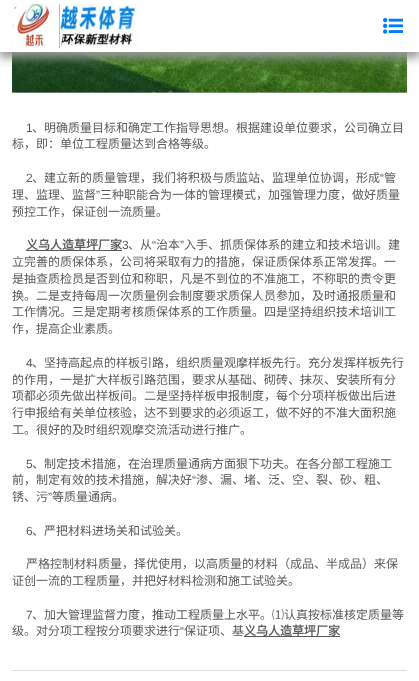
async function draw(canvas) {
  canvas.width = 419
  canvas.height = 681
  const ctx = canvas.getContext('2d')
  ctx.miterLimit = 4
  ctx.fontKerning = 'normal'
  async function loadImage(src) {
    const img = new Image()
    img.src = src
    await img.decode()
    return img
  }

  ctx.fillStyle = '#fff'
  ctx.fillRect(0, 0, 419, 681)
  ctx.drawImage(await loadImage('image2.png'), 12, 52, 395, 41)
  ctx.fillStyle = '#999'
  ctx.filter = 'blur(5px)'
  ctx.beginPath()
  ctx.rect(-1, 4, 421, 54)
  ctx.fill()
  ctx.filter = 'none'
  ctx.fillStyle = '#fff'
  ctx.fillRect(0, 0, 419, 52)
  ctx.drawImage(await loadImage('image0.png'), 10, 3, 129, 46)
  ctx.drawImage(await loadImage('image1.png'), 383, 18, 20, 16)
  ctx.font = '12px Liberation Sans'
  ctx.fillStyle = '#5a5a5a'
  ctx.fillText('1', 26, 132)
  ctx.font = '12px Noto Sans CJK SC'
  ctx.fillText('、明确质量目标和确定工作指导思想。根据建设单位要求，公司确立目', 32, 132)
  ctx.fillText('标，即：单位工程质量达到合格等级。', 12, 148)
  ctx.font = '12px Liberation Sans'
  ctx.fillText('2', 26, 182)
  ctx.font = '12px Noto Sans CJK SC'
  ctx.fillText('、建立新的质量管理，我们将积极与质监站、监理单位协调，形成', 32, 182)
  ctx.font = '12px Liberation Sans'
  ctx.fillText('“', 380, 182)
  ctx.font = '12px Noto Sans CJK SC'
  ctx.fillText('管', 384, 182)
  ctx.fillText('理、监理、监督', 12, 199)
  ctx.font = '12px Liberation Sans'
  ctx.fillText('”', 96, 199)
  ctx.font = '12px Noto Sans CJK SC'
  ctx.fillText('三种职能合为一体的管理模式，加强管理力度，做好质量', 100, 199)
  ctx.fillText('预控工作，保证创一流质量。', 12, 216)
  ctx.font = 'bold 12px Noto Sans CJK SC'
  ctx.fillText('义乌人造草坪厂家', 26, 249)
  ctx.fillRect(26, 250, 96, 1)
  ctx.font = '12px Liberation Sans'
  ctx.fillText('3', 122, 249)
  ctx.font = '12px Noto Sans CJK SC'
  ctx.fillText('、从', 128, 249)
  ctx.font = '12px Liberation Sans'
  ctx.fillText('“', 152, 249)
  ctx.font = '12px Noto Sans CJK SC'
  ctx.fillText('治本', 156, 249)
  ctx.font = '12px Liberation Sans'
  ctx.fillText('”', 180, 249)
  ctx.font = '12px Noto Sans CJK SC'
  ctx.fillText('入手、抓质保体系的建立和技术培训。建', 184, 249)
  ctx.fillText('立完善的质保体系，公司将采取有力的措施，保证质保体系正常发挥。一', 12, 266)
  ctx.fillText('是抽查质检员是否到位和称职，凡是不到位的不准施工，不称职的责令更', 12, 283)
  ctx.fillText('换。二是支持每周一次质量例会制度要求质保人员参加，及时通报质量和', 12, 300)
  ctx.fillText('工作情况。三是定期考核质保体系的工作质量。四是坚持组织技术培训工', 12, 316)
  ctx.fillText('作，提高企业素质。', 12, 333)
  ctx.font = '12px Liberation Sans'
  ctx.fillText('4', 26, 367)
  ctx.font = '12px Noto Sans CJK SC'
  ctx.fillText('、坚持高起点的样板引路，组织质量观摩样板先行。充分发挥样板先行', 32, 367)
  ctx.fillText('的作用，一是扩大样板引路范围，要求从基础、砌砖、抹灰、安装所有分', 12, 384)
  ctx.fillText('项都必须先做出样板间。二是坚持样板申报制度，每个分项样板做出后进', 12, 400)
  ctx.fillText('行申报给有关单位核验，达不到要求的必须返工，做不好的不准大面积施', 12, 417)
  ctx.fillText('工。很好的及时组织观摩交流活动进行推广。', 12, 434)
  ctx.font = '12px Liberation Sans'
  ctx.fillText('5', 26, 468)
  ctx.font = '12px Noto Sans CJK SC'
  ctx.fillText('、制定技术措施，在治理质量通病方面狠下功夫。在各分部工程施工', 32, 468)
  ctx.fillText('前，制定有效的技术措施，解决好', 12, 484)
  ctx.font = '12px Liberation Sans'
  ctx.fillText('“', 192, 484)
  ctx.font = '12px Noto Sans CJK SC'
  ctx.fillText('渗、漏、堵、泛、空、裂、砂、粗、', 196, 484)
  ctx.fillText('锈、污', 12, 501)
  ctx.font = '12px Liberation Sans'
  ctx.fillText('”', 48, 501)
  ctx.font = '12px Noto Sans CJK SC'
  ctx.fillText('等质量通病。', 52, 501)
  ctx.font = '12px Liberation Sans'
  ctx.fillText('6', 26, 535)
  ctx.font = '12px Noto Sans CJK SC'
  ctx.fillText('、严把材料进场关和试验关。', 32, 535)
  ctx.fillText('严格控制材料质量，择优使用，以高质量的材料（成品、半成品）来保', 26, 568)
  ctx.fillText('证创一流的工程质量，并把好材料检测和施工试验关。', 12, 585)
  ctx.font = '12px Liberation Sans'
  ctx.fillText('7', 26, 619)
  ctx.font = '12px Noto Sans CJK SC'
  ctx.fillText('、加大管理监督力度，推动工程质量上水平。⑴认真按标准核定质量等', 32, 619)
  ctx.fillText('级。对分项工程按分项要求进行', 12, 635)
  ctx.font = '12px Liberation Sans'
  ctx.fillText('“', 180, 635)
  ctx.font = '12px Noto Sans CJK SC'
  ctx.fillText('保证项、基', 184, 635)
  ctx.font = 'bold 12px Noto Sans CJK SC'
  ctx.fillText('义乌人造草坪厂家', 244, 635)
  ctx.fillRect(244, 636, 96, 1)
  ctx.fillStyle = '#ddd'
  ctx.fillRect(12, 670, 395, 1)
}

draw(document.querySelector('canvas'))
